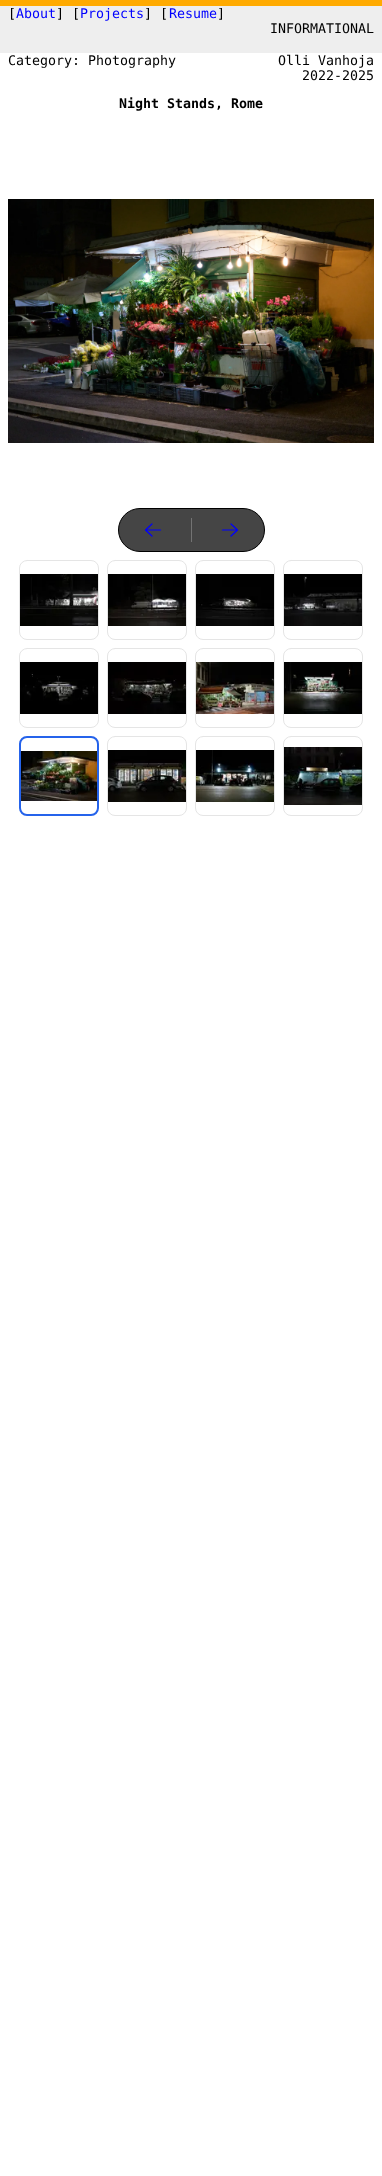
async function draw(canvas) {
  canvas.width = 382
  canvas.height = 2176
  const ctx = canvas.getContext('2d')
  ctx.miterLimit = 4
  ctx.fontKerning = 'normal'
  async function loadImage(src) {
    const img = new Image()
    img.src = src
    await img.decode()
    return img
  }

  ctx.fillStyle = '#fff'
  ctx.fillRect(0, 0, 382, 2176)
  ctx.fillStyle = '#fa0'
  ctx.fillRect(0, 0, 382, 6)
  ctx.fillStyle = '#eee'
  ctx.fillRect(0, 6, 382, 47)
  ctx.font = '13.3px DejaVu Sans Mono'
  ctx.fillStyle = '#000'
  ctx.fillText('[', 8, 18)
  ctx.fillStyle = '#00f'
  ctx.fillText('About', 16, 18)
  ctx.fillStyle = '#000'
  ctx.fillText('] [', 56, 18)
  ctx.fillStyle = '#00f'
  ctx.fillText('Projects', 80, 18)
  ctx.fillStyle = '#000'
  ctx.fillText('] [', 144, 18)
  ctx.fillStyle = '#00f'
  ctx.fillText('Resume', 169, 18)
  ctx.fillStyle = '#000'
  ctx.fillText(']', 217, 18)
  ctx.fillText('INFORMATIONAL', 270, 33)
  ctx.fillText('Category: Photography', 8, 65)
  ctx.fillText('Olli Vanhoja', 278, 65)
  ctx.fillText('2022-2025', 302, 80)
  ctx.font = 'bold 13.3px DejaVu Sans Mono'
  ctx.fillText('Night Stands, Rome', 119, 108)
  ctx.drawImage(await loadImage('image0.png'), 8, 199, 366, 244)
  ctx.fillStyle = '#454545'
  ctx.beginPath()
  ctx.roundRect(118.5, 508.5, 146, 43, 21.5)
  ctx.fill()
  ctx.strokeStyle = '#000'
  ctx.stroke()
  ctx.beginPath()
  ctx.moveTo(152, 536)
  ctx.lineTo(145.5, 530)
  ctx.moveTo(145.5, 530)
  ctx.lineTo(152, 524)
  ctx.moveTo(145.5, 530)
  ctx.lineTo(160.5, 530)
  ctx.strokeStyle = '#00f'
  ctx.lineWidth = 1.2
  ctx.lineCap = 'round'
  ctx.lineJoin = 'round'
  ctx.stroke()
  ctx.fillStyle = '#737373'
  ctx.fillRect(191, 518, 1, 24)
  ctx.beginPath()
  ctx.moveTo(231, 524)
  ctx.lineTo(237.5, 530)
  ctx.moveTo(237.5, 530)
  ctx.lineTo(231, 536)
  ctx.moveTo(237.5, 530)
  ctx.lineTo(222.5, 530)
  ctx.stroke()
  ctx.beginPath()
  ctx.roundRect(19.5, 560.5, 79, 79, 7.5)
  ctx.strokeStyle = '#e5e5e5'
  ctx.lineWidth = 1
  ctx.lineJoin = 'miter'
  ctx.stroke()
  ctx.drawImage(await loadImage('image1.png'), 20, 574, 78, 52)
  ctx.beginPath()
  ctx.roundRect(107.5, 560.5, 79, 79, 7.5)
  ctx.stroke()
  ctx.drawImage(await loadImage('image2.png'), 108, 574, 78, 52)
  ctx.beginPath()
  ctx.roundRect(195.5, 560.5, 79, 79, 7.5)
  ctx.stroke()
  ctx.drawImage(await loadImage('image3.png'), 196, 574, 78, 52)
  ctx.beginPath()
  ctx.roundRect(283.5, 560.5, 79, 79, 7.5)
  ctx.stroke()
  ctx.drawImage(await loadImage('image4.png'), 284, 574, 78, 52)
  ctx.beginPath()
  ctx.roundRect(19.5, 648.5, 79, 79, 7.5)
  ctx.stroke()
  ctx.drawImage(await loadImage('image5.png'), 20, 662, 78, 52)
  ctx.beginPath()
  ctx.roundRect(107.5, 648.5, 79, 79, 7.5)
  ctx.stroke()
  ctx.drawImage(await loadImage('image6.png'), 108, 662, 78, 52)
  ctx.beginPath()
  ctx.roundRect(195.5, 648.5, 79, 79, 7.5)
  ctx.stroke()
  ctx.drawImage(await loadImage('image7.png'), 196, 662, 78, 52)
  ctx.beginPath()
  ctx.roundRect(283.5, 648.5, 79, 79, 7.5)
  ctx.stroke()
  ctx.drawImage(await loadImage('image8.png'), 284, 662, 78, 52)
  ctx.beginPath()
  ctx.roundRect(20, 737, 78, 78, 7)
  ctx.strokeStyle = '#2563eb'
  ctx.lineWidth = 2
  ctx.stroke()
  ctx.drawImage(await loadImage('image9.png'), 21, 751, 76, 50)
  ctx.beginPath()
  ctx.roundRect(107.5, 736.5, 79, 79, 7.5)
  ctx.strokeStyle = '#e5e5e5'
  ctx.lineWidth = 1
  ctx.stroke()
  ctx.drawImage(await loadImage('image10.png'), 108, 750, 78, 52)
  ctx.beginPath()
  ctx.roundRect(195.5, 736.5, 79, 79, 7.5)
  ctx.stroke()
  ctx.drawImage(await loadImage('image11.png'), 196, 750, 78, 52)
  ctx.beginPath()
  ctx.roundRect(283.5, 736.5, 79, 79, 7.5)
  ctx.stroke()
  ctx.drawImage(await loadImage('image12.png'), 284, 747, 78, 58)
}

draw(document.querySelector('canvas'))
